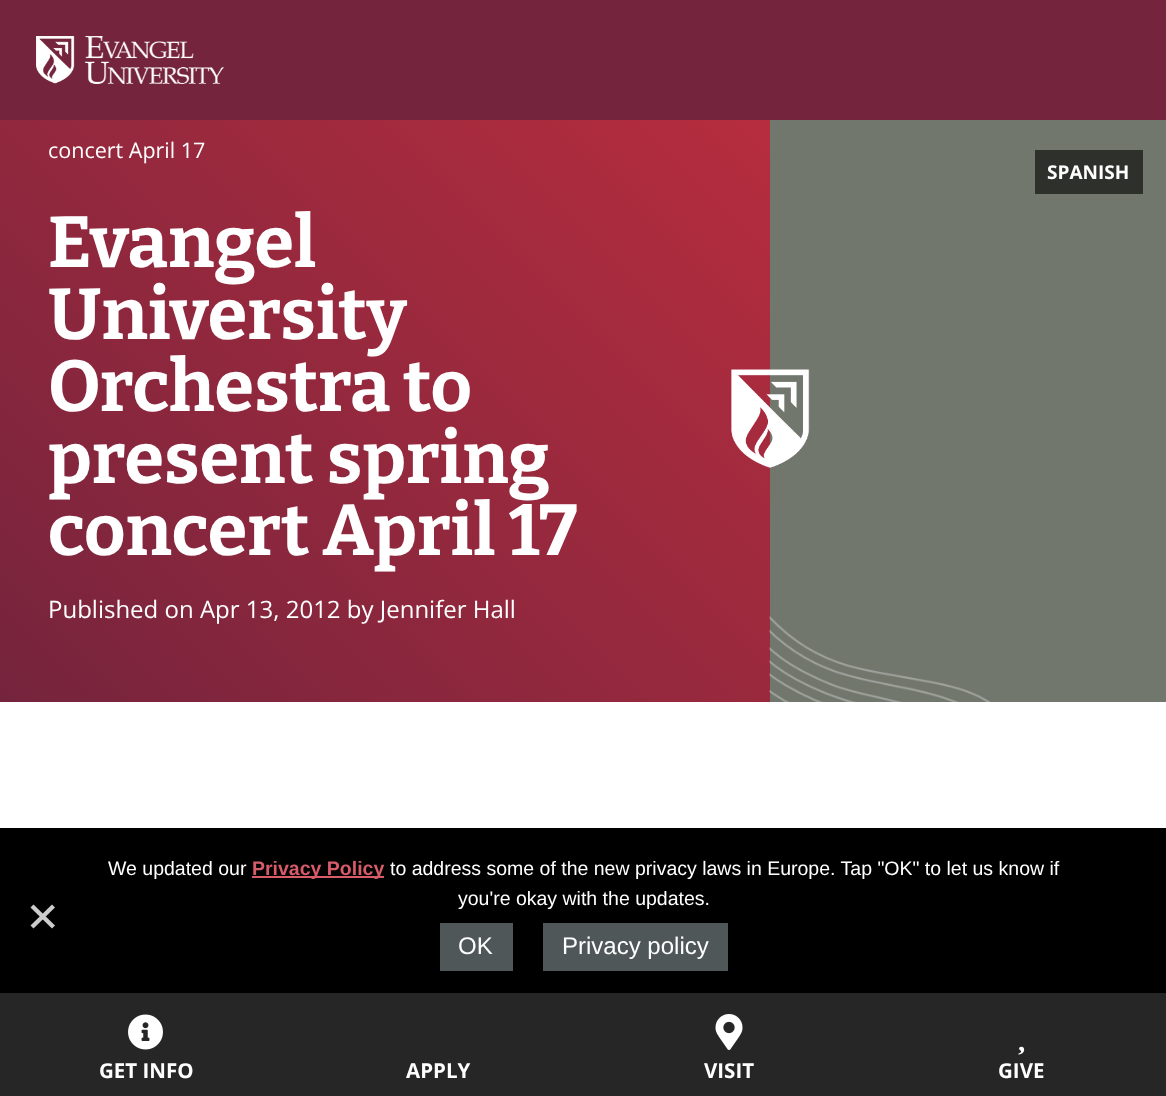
async function draw(canvas) {
  canvas.width = 1166
  canvas.height = 1096
  const ctx = canvas.getContext('2d')
  ctx.miterLimit = 4
  ctx.fontKerning = 'normal'
  async function loadImage(src) {
    const img = new Image()
    img.src = src
    await img.decode()
    return img
  }
  let gradient

  ctx.fillStyle = '#fff'
  ctx.fillRect(0, 0, 1166, 1096)
  gradient = ctx.createLinearGradient(408, 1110, 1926, -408)
  gradient.addColorStop(0, '#75243d')
  gradient.addColorStop(0.5, '#be2e3e')
  gradient.addColorStop(1, '#75243d')
  ctx.fillStyle = gradient
  ctx.fillRect(0, 120, 770, 582)
  ctx.font = '21.5px Open Sans'
  ctx.fillStyle = '#fff'
  ctx.fillText('concert April 17', 48, 158)
  ctx.font = 'bold 72px Bitter'
  ctx.fillText('Evangel', 48, 267)
  ctx.fillText('University', 48, 339)
  ctx.fillText('Orchestra to', 48, 411)
  ctx.fillText('present spring', 48, 483)
  ctx.fillText('concert April 17', 48, 555)
  ctx.font = '24px Open Sans'
  ctx.fillText('Published on Apr 13, 2012 by Jennifer Hall', 48, 618)
  ctx.fillStyle = '#72776e'
  ctx.fillRect(770, 120, 396, 582)
  ctx.drawImage(await loadImage('image0.png'), 769, 616, 222, 86)
  ctx.drawImage(await loadImage('image1.png'), 731, 369, 79, 99)
  ctx.fillStyle = '#75243d'
  ctx.fillRect(0, 0, 1166, 120)
  ctx.drawImage(await loadImage('image2.png'), 36, 36, 188, 48)
  ctx.fillStyle = '#2e302c'
  ctx.fillRect(1035, 150, 108, 44)
  ctx.font = 'bold 19px Open Sans'
  ctx.fillStyle = '#fff'
  ctx.fillText('SPANISH', 1047, 179)
  ctx.fillStyle = '#262626'
  ctx.fillRect(0, 993, 1166, 103)
  ctx.drawImage(await loadImage('image3.png'), 128, 1014, 35, 36)
  ctx.font = 'bold 20.5px Open Sans'
  ctx.fillStyle = '#fff'
  ctx.fillText('GET INFO', 99, 1078)
  ctx.fillText('APPLY', 406, 1078)
  ctx.drawImage(await loadImage('image4.png'), 715, 1014, 28, 36)
  ctx.fillText('VISIT', 704, 1078)
  ctx.drawImage(await loadImage('image5.png'), 1018, 1046, 7, 9)
  ctx.fillText('GIVE', 998, 1078)
  ctx.fillStyle = '#000'
  ctx.fillRect(0, 828, 1166, 165)
  ctx.font = '19.5px Liberation Sans'
  ctx.fillStyle = '#fff'
  ctx.fillText('We updated our', 108, 875)
  ctx.fillStyle = '#d75b69'
  ctx.fillRect(252, 876, 132, 2)
  ctx.font = 'bold 19.5px Liberation Sans'
  ctx.fillText('Privacy Policy', 252, 875)
  ctx.font = '19.5px Liberation Sans'
  ctx.fillStyle = '#fff'
  ctx.fillText('to address some of the new privacy laws in Europe. Tap "OK" to let us know if', 390, 875)
  ctx.fillText('you\'re okay with the updates.', 458, 905)
  ctx.fillStyle = '#ccc'
  ctx.beginPath()
  ctx.moveTo(52, 904.5)
  ctx.lineTo(55, 907.5)
  ctx.lineTo(33.5, 928.5)
  ctx.lineTo(30.5, 925.5)
  ctx.closePath()
  ctx.fill()
  ctx.beginPath()
  ctx.moveTo(30.5, 907.5)
  ctx.lineTo(33.5, 904.5)
  ctx.lineTo(55, 925.5)
  ctx.lineTo(52, 928.5)
  ctx.closePath()
  ctx.fill()
  ctx.fillStyle = '#4f5759'
  ctx.fillRect(440, 923, 73, 48)
  ctx.font = '24px Liberation Sans'
  ctx.fillStyle = '#fff'
  ctx.fillText('OK', 458, 954)
  ctx.fillStyle = '#4f5759'
  ctx.fillRect(543, 923, 185, 48)
  ctx.fillStyle = '#fff'
  ctx.fillText('Privacy policy', 562, 954)
}

draw(document.querySelector('canvas'))
